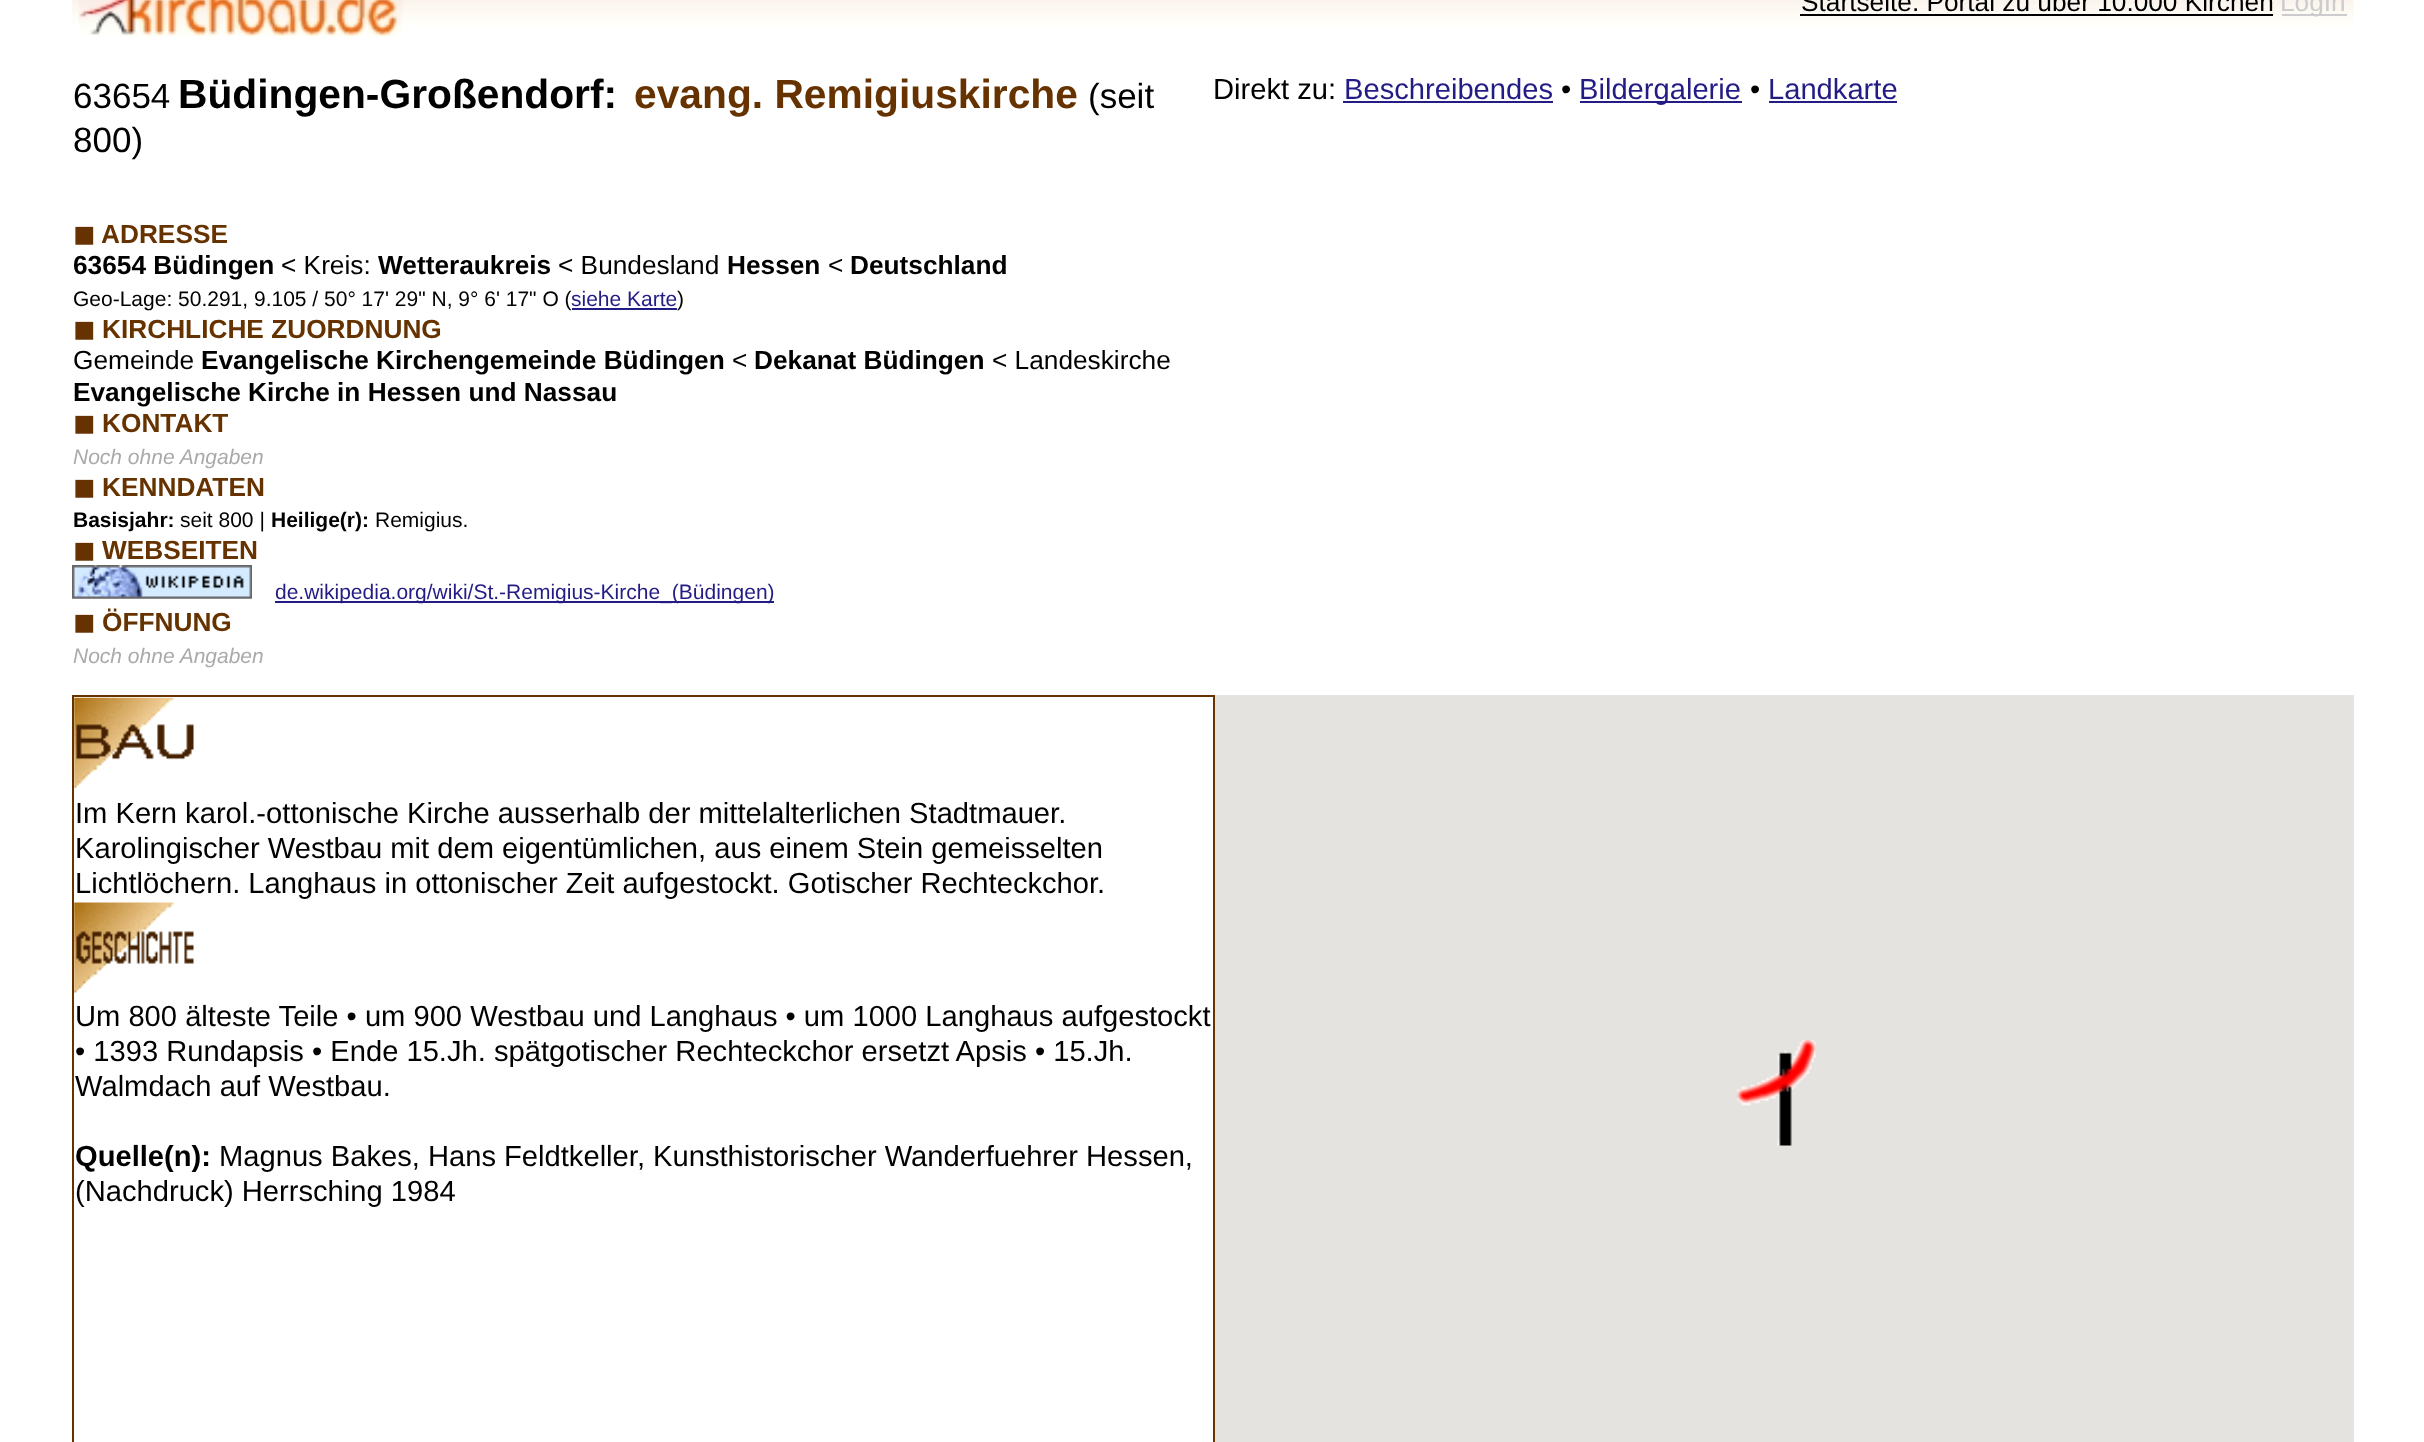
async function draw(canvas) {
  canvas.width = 2424
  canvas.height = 1442
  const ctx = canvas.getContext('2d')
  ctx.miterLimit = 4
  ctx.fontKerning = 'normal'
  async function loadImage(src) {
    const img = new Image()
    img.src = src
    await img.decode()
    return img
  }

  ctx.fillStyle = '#fff'
  ctx.fillRect(0, 0, 2424, 1442)
  ctx.drawImage(await loadImage('image0.png'), 72, 0, 2282, 26)
  ctx.drawImage(await loadImage('image1.png'), 78, 0, 325, 37)
  ctx.font = '26.25px Liberation Sans'
  ctx.fillStyle = '#000'
  ctx.fillText('Startseite: Portal zu über 10.000 Kirchen', 1801, 11)
  ctx.fillRect(1800, 14, 473, 2)
  ctx.fillStyle = '#ccccce'
  ctx.fillRect(2282, 14, 65, 2)
  ctx.fillText('LogIn', 2280, 11)
  ctx.font = '35px Liberation Sans'
  ctx.fillStyle = '#000'
  ctx.fillText('63654', 73, 108)
  ctx.font = 'bold 40.75px Liberation Sans'
  ctx.fillText('Büdingen-Großendorf:', 178, 108)
  ctx.fillStyle = '#630'
  ctx.fillText('evang. Remigiuskirche', 634, 108)
  ctx.font = '35px Liberation Sans'
  ctx.fillStyle = '#000'
  ctx.fillText('(seit', 1088, 108)
  ctx.fillText('800)', 73, 152)
  ctx.font = '29.15px Liberation Sans'
  ctx.fillText('Direkt zu:', 1213, 99)
  ctx.fillStyle = '#231c85'
  ctx.fillText('Beschreibendes', 1344, 99)
  ctx.fillRect(1343, 101, 210, 2)
  ctx.fillStyle = '#000'
  ctx.fillText('•', 1561, 99)
  ctx.fillStyle = '#231c85'
  ctx.fillRect(1580, 101, 162, 2)
  ctx.fillText('Bildergalerie', 1579, 99)
  ctx.fillStyle = '#000'
  ctx.fillText('•', 1750, 99)
  ctx.fillStyle = '#231c85'
  ctx.fillText('Landkarte', 1768, 99)
  ctx.fillRect(1769, 101, 128, 2)
  ctx.font = 'bold 26.25px DejaVu Sans'
  ctx.fillStyle = '#630'
  ctx.fillText('◼', 73, 243)
  ctx.font = 'bold 26.25px Liberation Sans'
  ctx.fillText('ADRESSE', 101, 243)
  ctx.fillStyle = '#000'
  ctx.fillText('63654 Büdingen', 73, 274)
  ctx.font = '26.25px Liberation Sans'
  ctx.fillText('< Kreis:', 281, 274)
  ctx.font = 'bold 26.25px Liberation Sans'
  ctx.fillText('Wetteraukreis', 378, 274)
  ctx.font = '26.25px Liberation Sans'
  ctx.fillText('< Bundesland', 558, 274)
  ctx.font = 'bold 26.25px Liberation Sans'
  ctx.fillText('Hessen', 727, 274)
  ctx.font = '26.25px Liberation Sans'
  ctx.fillText('<', 828, 274)
  ctx.font = 'bold 26.25px Liberation Sans'
  ctx.fillText('Deutschland', 850, 274)
  ctx.font = '21px Liberation Sans'
  ctx.fillText('Geo-Lage: 50.291, 9.105 / 50° 17\' 29" N, 9° 6\' 17" O (', 73, 306)
  ctx.fillStyle = '#231c85'
  ctx.fillText('siehe Karte', 571, 306)
  ctx.fillStyle = '#000'
  ctx.fillText(')', 677, 306)
  ctx.fillStyle = '#231c85'
  ctx.fillRect(572, 308, 105, 2)
  ctx.font = 'bold 26.25px DejaVu Sans'
  ctx.fillStyle = '#630'
  ctx.fillText('◼', 73, 338)
  ctx.font = 'bold 26.25px Liberation Sans'
  ctx.fillText('KIRCHLICHE ZUORDNUNG', 102, 338)
  ctx.font = '26.25px Liberation Sans'
  ctx.fillStyle = '#000'
  ctx.fillText('Gemeinde', 73, 369)
  ctx.font = 'bold 26.25px Liberation Sans'
  ctx.fillText('Evangelische Kirchengemeinde Büdingen', 201, 369)
  ctx.font = '26.25px Liberation Sans'
  ctx.fillText('<', 732, 369)
  ctx.font = 'bold 26.25px Liberation Sans'
  ctx.fillText('Dekanat Büdingen', 754, 369)
  ctx.font = '26.25px Liberation Sans'
  ctx.fillText('< Landeskirche', 992, 369)
  ctx.font = 'bold 26.25px Liberation Sans'
  ctx.fillText('Evangelische Kirche in Hessen und Nassau', 73, 401)
  ctx.font = 'bold 26.25px DejaVu Sans'
  ctx.fillStyle = '#630'
  ctx.fillText('◼', 73, 432)
  ctx.font = 'bold 26.25px Liberation Sans'
  ctx.fillText('KONTAKT', 102, 432)
  ctx.font = 'italic 21px Liberation Sans'
  ctx.fillStyle = '#aaa'
  ctx.fillText('Noch ohne Angaben', 73, 464)
  ctx.font = 'bold 26.25px DejaVu Sans'
  ctx.fillStyle = '#630'
  ctx.fillText('◼', 73, 496)
  ctx.font = 'bold 26.25px Liberation Sans'
  ctx.fillText('KENNDATEN', 102, 496)
  ctx.font = 'bold 21px Liberation Sans'
  ctx.fillStyle = '#000'
  ctx.fillText('Basisjahr:', 73, 527)
  ctx.font = '21px Liberation Sans'
  ctx.fillText('seit 800 |', 180, 527)
  ctx.font = 'bold 21px Liberation Sans'
  ctx.fillText('Heilige(r):', 271, 527)
  ctx.font = '21px Liberation Sans'
  ctx.fillText('Remigius.', 375, 527)
  ctx.font = 'bold 26.25px DejaVu Sans'
  ctx.fillStyle = '#630'
  ctx.fillText('◼', 73, 559)
  ctx.font = 'bold 26.25px Liberation Sans'
  ctx.fillText('WEBSEITEN', 102, 559)
  ctx.drawImage(await loadImage('image2.png'), 72, 565, 180, 34)
  ctx.fillStyle = '#231c85'
  ctx.fillRect(275, 601, 499, 2)
  ctx.font = '21px Liberation Sans'
  ctx.fillText('de.wikipedia.org/wiki/St.-Remigius-Kirche_(Büdingen)', 275, 599)
  ctx.font = 'bold 26.25px DejaVu Sans'
  ctx.fillStyle = '#630'
  ctx.fillText('◼', 73, 631)
  ctx.font = 'bold 26.25px Liberation Sans'
  ctx.fillText('ÖFFNUNG', 102, 631)
  ctx.font = 'italic 21px Liberation Sans'
  ctx.fillStyle = '#aaa'
  ctx.fillText('Noch ohne Angaben', 73, 663)
  ctx.strokeStyle = '#630'
  ctx.lineWidth = 2
  ctx.strokeRect(73, 696, 1141, 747)
  ctx.drawImage(await loadImage('image3.png'), 74, 697, 120, 91)
  ctx.font = '29.15px Liberation Sans'
  ctx.fillStyle = '#000'
  ctx.fillText('Im Kern karol.-ottonische Kirche ausserhalb der mittelalterlichen Stadtmauer.', 75, 823)
  ctx.fillText('Karolingischer Westbau mit dem eigentümlichen, aus einem Stein gemeisselten', 75, 858)
  ctx.fillText('Lichtlöchern. Langhaus in ottonischer Zeit aufgestockt. Gotischer Rechteckchor.', 75, 893)
  ctx.drawImage(await loadImage('image4.png'), 74, 902, 120, 91)
  ctx.fillText('Um 800 älteste Teile • um 900 Westbau und Langhaus • um 1000 Langhaus aufgestockt', 75, 1026)
  ctx.fillText('• 1393 Rundapsis • Ende 15.Jh. spätgotischer Rechteckchor ersetzt Apsis • 15.Jh.', 75, 1061)
  ctx.fillText('Walmdach auf Westbau.', 75, 1096)
  ctx.font = 'bold 29.15px Liberation Sans'
  ctx.fillText('Quelle(n):', 75, 1166)
  ctx.font = '29.15px Liberation Sans'
  ctx.fillText('Magnus Bakes, Hans Feldtkeller, Kunsthistorischer Wanderfuehrer Hessen,', 219, 1166)
  ctx.fillText('(Nachdruck) Herrsching 1984', 75, 1201)
  ctx.fillStyle = '#e5e3df'
  ctx.fillRect(1215, 695, 1139, 747)
  ctx.drawImage(await loadImage('image5.png'), 1736, 1039, 81, 107)
}

draw(document.querySelector('canvas'))
